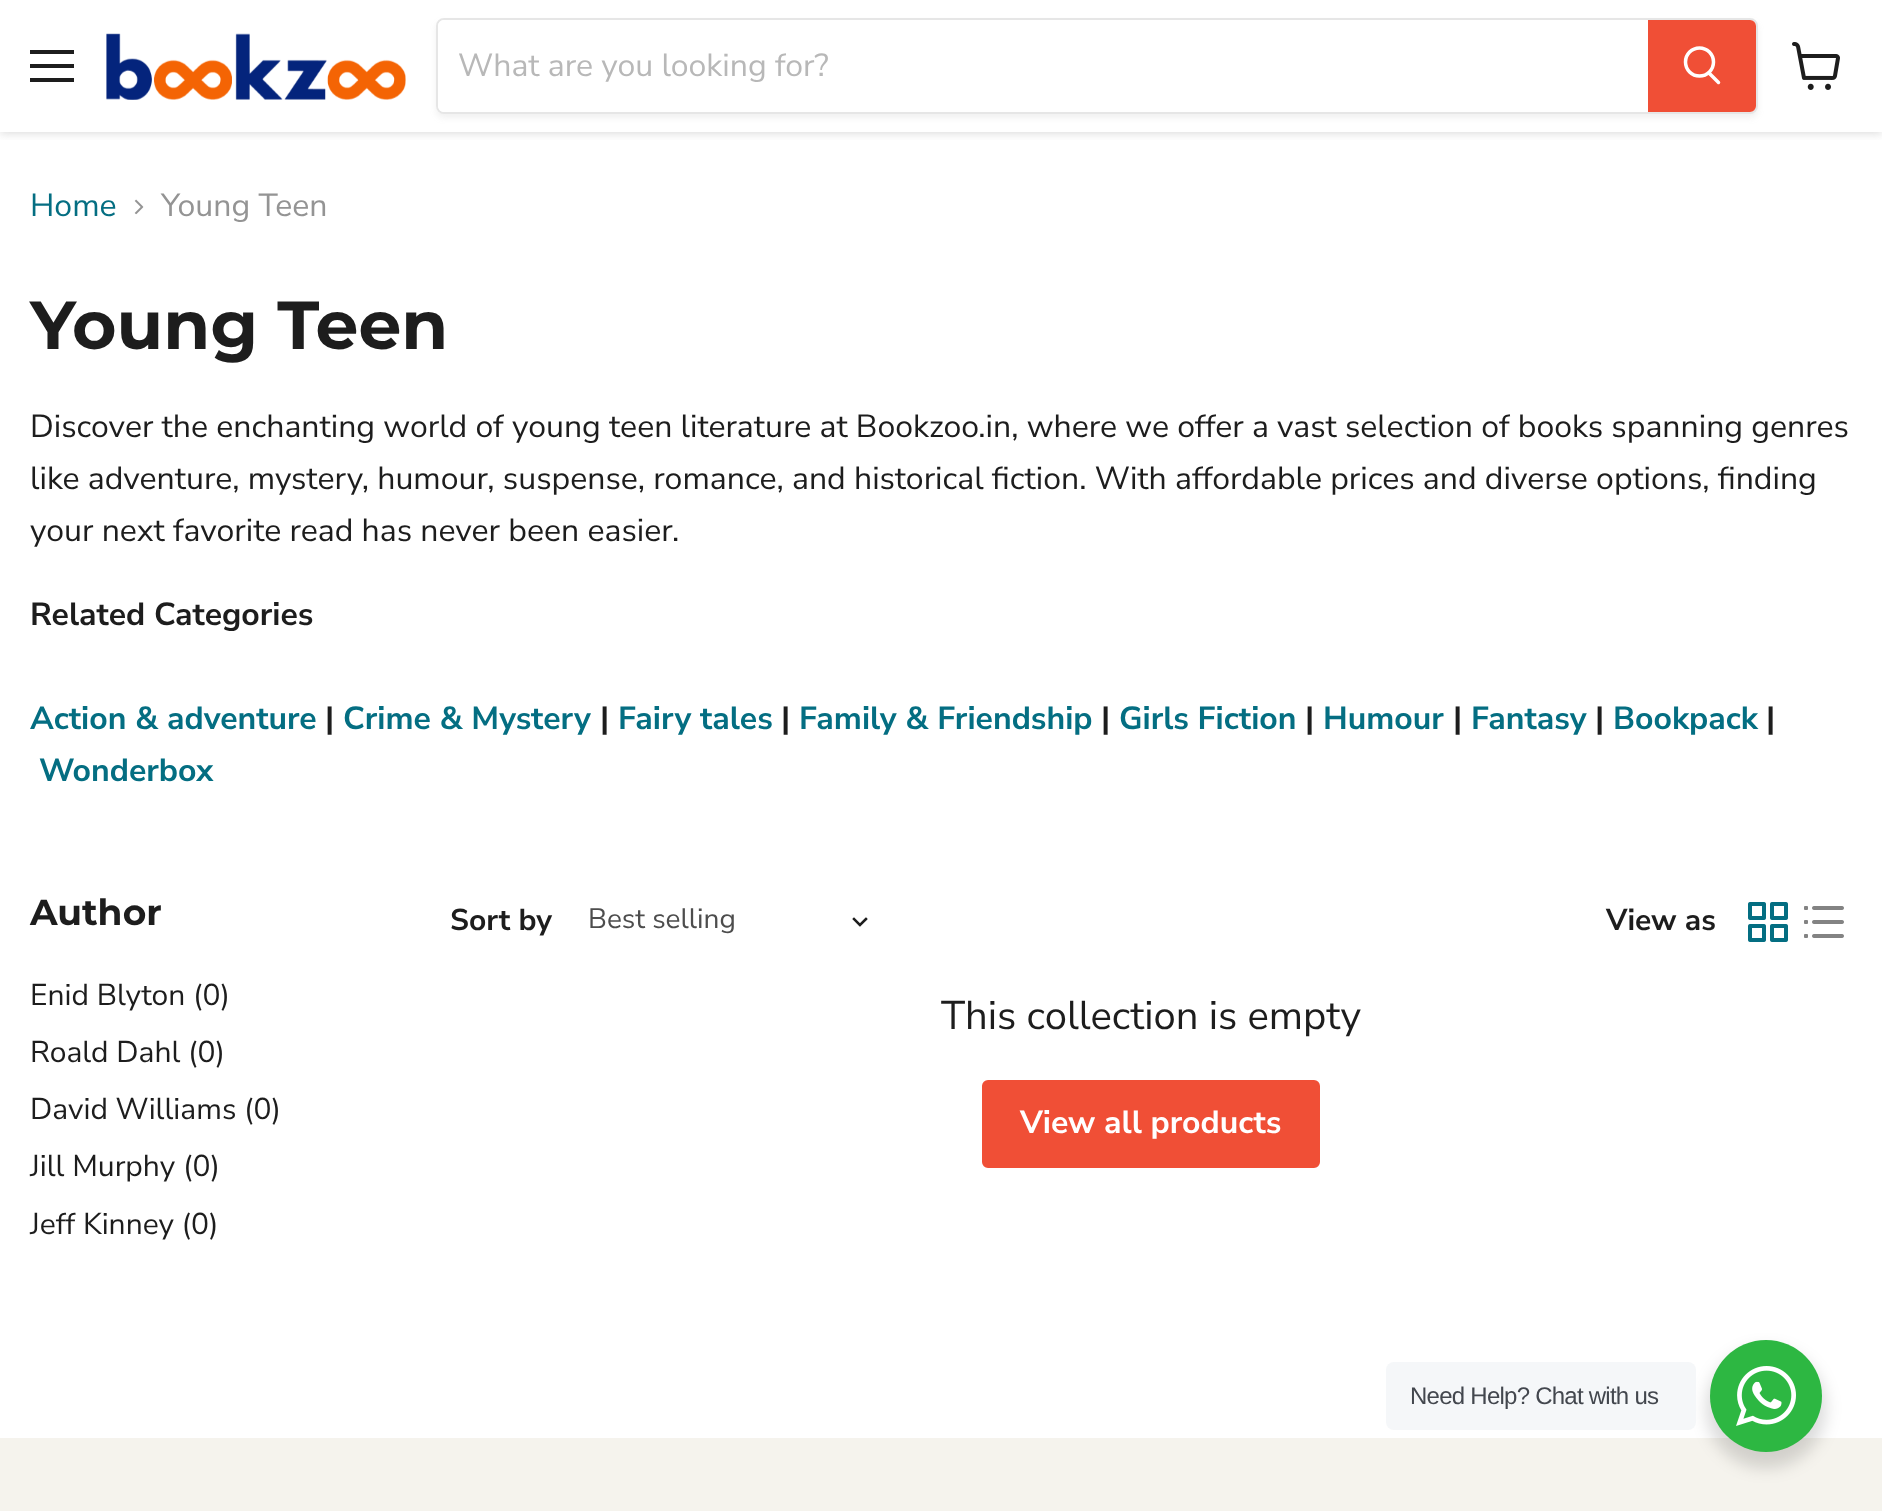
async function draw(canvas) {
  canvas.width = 1882
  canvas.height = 1511
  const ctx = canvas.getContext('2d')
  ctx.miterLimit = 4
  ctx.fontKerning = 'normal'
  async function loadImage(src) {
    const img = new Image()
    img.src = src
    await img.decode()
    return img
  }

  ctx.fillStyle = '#fff'
  ctx.fillRect(0, 0, 1882, 1511)
  ctx.save()
  ctx.beginPath()
  ctx.rect(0, 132, 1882, 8)
  ctx.clip()
  ctx.fillStyle = '#80808040'
  ctx.filter = 'blur(4px)'
  ctx.beginPath()
  ctx.rect(0, 2, 1882, 132)
  ctx.fill()
  ctx.filter = 'none'
  ctx.restore()
  ctx.fillStyle = '#1d1d1d'
  ctx.fillRect(30, 50, 44, 4)
  ctx.fillRect(30, 64, 44, 4)
  ctx.fillRect(30, 78, 44, 4)
  ctx.drawImage(await loadImage('image0.png'), 106, 33, 300, 67)
  ctx.save()
  ctx.beginPath()
  ctx.moveTo(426, 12)
  ctx.lineTo(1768, 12)
  ctx.lineTo(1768, 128)
  ctx.lineTo(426, 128)
  ctx.closePath()
  ctx.moveTo(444, 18)
  ctx.lineTo(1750, 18)
  ctx.bezierCurveTo(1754.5, 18, 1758, 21.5, 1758, 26)
  ctx.lineTo(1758, 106)
  ctx.bezierCurveTo(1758, 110.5, 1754.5, 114, 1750, 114)
  ctx.lineTo(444, 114)
  ctx.bezierCurveTo(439.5, 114, 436, 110.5, 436, 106)
  ctx.lineTo(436, 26)
  ctx.bezierCurveTo(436, 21.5, 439.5, 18, 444, 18)
  ctx.closePath()
  ctx.clip('evenodd')
  ctx.fillStyle = '#8080801c'
  ctx.filter = 'blur(3px)'
  ctx.beginPath()
  ctx.roundRect(436, 22, 1322, 96, 8)
  ctx.fill()
  ctx.filter = 'none'
  ctx.restore()
  ctx.beginPath()
  ctx.roundRect(437, 19, 1320, 94, 7)
  ctx.strokeStyle = '#80808033'
  ctx.lineWidth = 2
  ctx.stroke()
  ctx.fillStyle = '#fff'
  ctx.beginPath()
  ctx.roundRect(438, 20, 1210, 92, [6, 0, 0, 6])
  ctx.fill()
  ctx.font = '32px Nunito Sans'
  ctx.fillStyle = '#b8b8b8'
  ctx.fillText('What are you looking for?', 458, 76)
  ctx.fillStyle = '#f04f36'
  ctx.beginPath()
  ctx.roundRect(1649, 21, 106, 90, [0, 5, 5, 0])
  ctx.fill()
  ctx.strokeStyle = '#f04f36'
  ctx.stroke()
  ctx.beginPath()
  ctx.moveTo(1718.5, 82.5)
  ctx.lineTo(1709, 73)
  ctx.strokeStyle = '#fff'
  ctx.lineWidth = 3.5
  ctx.lineCap = 'round'
  ctx.stroke()
  ctx.beginPath()
  ctx.arc(1699.5, 62, 14, 0, 2 * Math.PI)
  ctx.stroke()
  ctx.drawImage(await loadImage('image1.png'), 1792, 42, 48, 48)
  ctx.fillStyle = '#046e82'
  ctx.fillText('Home', 30, 216)
  ctx.drawImage(await loadImage('image2.png'), 134, 199, 10, 16)
  ctx.fillStyle = '#949494'
  ctx.fillText('Young Teen', 161, 216)
  ctx.font = 'bold 68px Montserrat'
  ctx.fillStyle = '#1d1d1d'
  ctx.fillText('Young Teen', 30, 349)
  ctx.font = '32px Nunito Sans'
  ctx.fillText('Discover the enchanting world of young teen literature at Bookzoo.in, where we offer a vast selection of books spanning genres', 30, 437)
  ctx.fillText('like adventure, mystery, humour, suspense, romance, and historical fiction. With affordable prices and diverse options, finding', 30, 489)
  ctx.fillText('your next favorite read has never been easier.', 30, 541)
  ctx.font = 'bold 32px Nunito Sans'
  ctx.fillText('Related Categories', 30, 625)
  ctx.fillStyle = '#046e82'
  ctx.fillText('Action & adventure', 30, 729)
  ctx.fillStyle = '#1d1d1d'
  ctx.fillText('|', 325, 729)
  ctx.fillStyle = '#046e82'
  ctx.fillText('Crime & Mystery', 343, 729)
  ctx.fillStyle = '#1d1d1d'
  ctx.fillText('|', 600, 729)
  ctx.fillStyle = '#046e82'
  ctx.fillText('Fairy tales', 618, 729)
  ctx.fillStyle = '#1d1d1d'
  ctx.fillText('|', 781, 729)
  ctx.fillStyle = '#046e82'
  ctx.fillText('Family & Friendship', 799, 729)
  ctx.fillStyle = '#1d1d1d'
  ctx.fillText('|', 1101, 729)
  ctx.fillStyle = '#046e82'
  ctx.fillText('Girls Fiction', 1119, 729)
  ctx.fillStyle = '#1d1d1d'
  ctx.fillText('|', 1305, 729)
  ctx.fillStyle = '#046e82'
  ctx.fillText('Humour', 1323, 729)
  ctx.fillStyle = '#1d1d1d'
  ctx.fillText('|', 1453, 729)
  ctx.fillStyle = '#046e82'
  ctx.fillText('Fantasy', 1471, 729)
  ctx.fillStyle = '#1d1d1d'
  ctx.fillText('|', 1595, 729)
  ctx.fillStyle = '#046e82'
  ctx.fillText('Bookpack', 1613, 729)
  ctx.fillStyle = '#1d1d1d'
  ctx.fillText('|', 1766, 729)
  ctx.fillStyle = '#046e82'
  ctx.fillText('Wonderbox', 39, 781)
  ctx.font = 'bold 36px Montserrat'
  ctx.fillStyle = '#1d1d1d'
  ctx.fillText('Author', 30, 925)
  ctx.font = '30px Nunito Sans'
  ctx.fillText('Enid Blyton (0)', 30, 1005)
  ctx.fillText('Roald Dahl (0)', 30, 1062)
  ctx.fillText('David Williams (0)', 30, 1119)
  ctx.fillText('Jill Murphy (0)', 30, 1176)
  ctx.fillText('Jeff Kinney (0)', 30, 1234)
  ctx.font = 'bold 30px Nunito Sans'
  ctx.fillText('Sort by', 450, 930)
  ctx.font = '28px Nunito Sans'
  ctx.fillStyle = '#4d4d4d'
  ctx.fillText('Best selling', 588, 928)
  ctx.beginPath()
  ctx.moveTo(860, 925)
  ctx.lineTo(866, 919)
  ctx.moveTo(860, 925)
  ctx.lineTo(854, 919)
  ctx.strokeStyle = '#1d1d1d'
  ctx.lineWidth = 2.5
  ctx.lineCap = 'square'
  ctx.stroke()
  ctx.font = 'bold 30px Nunito Sans'
  ctx.fillStyle = '#1d1d1d'
  ctx.fillText('View as', 1606, 930)
  ctx.drawImage(await loadImage('image3.png'), 1748, 902, 40, 40)
  ctx.drawImage(await loadImage('image4.png'), 1804, 906, 40, 32)
  ctx.font = '40px Nunito Sans'
  ctx.fillText('This collection is empty', 941, 1029)
  ctx.fillStyle = '#f04f36'
  ctx.beginPath()
  ctx.roundRect(983, 1081, 336, 86, 5)
  ctx.fill()
  ctx.strokeStyle = '#f04f36'
  ctx.lineWidth = 2
  ctx.stroke()
  ctx.font = 'bold 32px Nunito Sans'
  ctx.fillStyle = '#fff'
  ctx.fillText('View all products', 1020, 1133)
  ctx.fillStyle = '#f5f3ed'
  ctx.fillRect(0, 1438, 1882, 73)
  ctx.fillStyle = '#00000024'
  ctx.filter = 'blur(8px)'
  ctx.beginPath()
  ctx.roundRect(1706, 1348, 120, 120, 60)
  ctx.fill()
  ctx.filter = 'none'
  ctx.fillStyle = '#f5f7f9'
  ctx.beginPath()
  ctx.roundRect(1386, 1362, 310, 68, 8)
  ctx.fill()
  ctx.letterSpacing = '-0.75px'
  ctx.font = '24px Liberation Sans'
  ctx.fillStyle = '#43474e'
  ctx.fillText('Need Help? Chat with us', 1410, 1404)
  ctx.fillStyle = '#2db742'
  ctx.beginPath()
  ctx.arc(1766, 1396, 56, 0, 2 * Math.PI)
  ctx.fill()
  ctx.drawImage(await loadImage('image5.png'), 1736, 1366, 60, 60)
}

draw(document.querySelector('canvas'))
